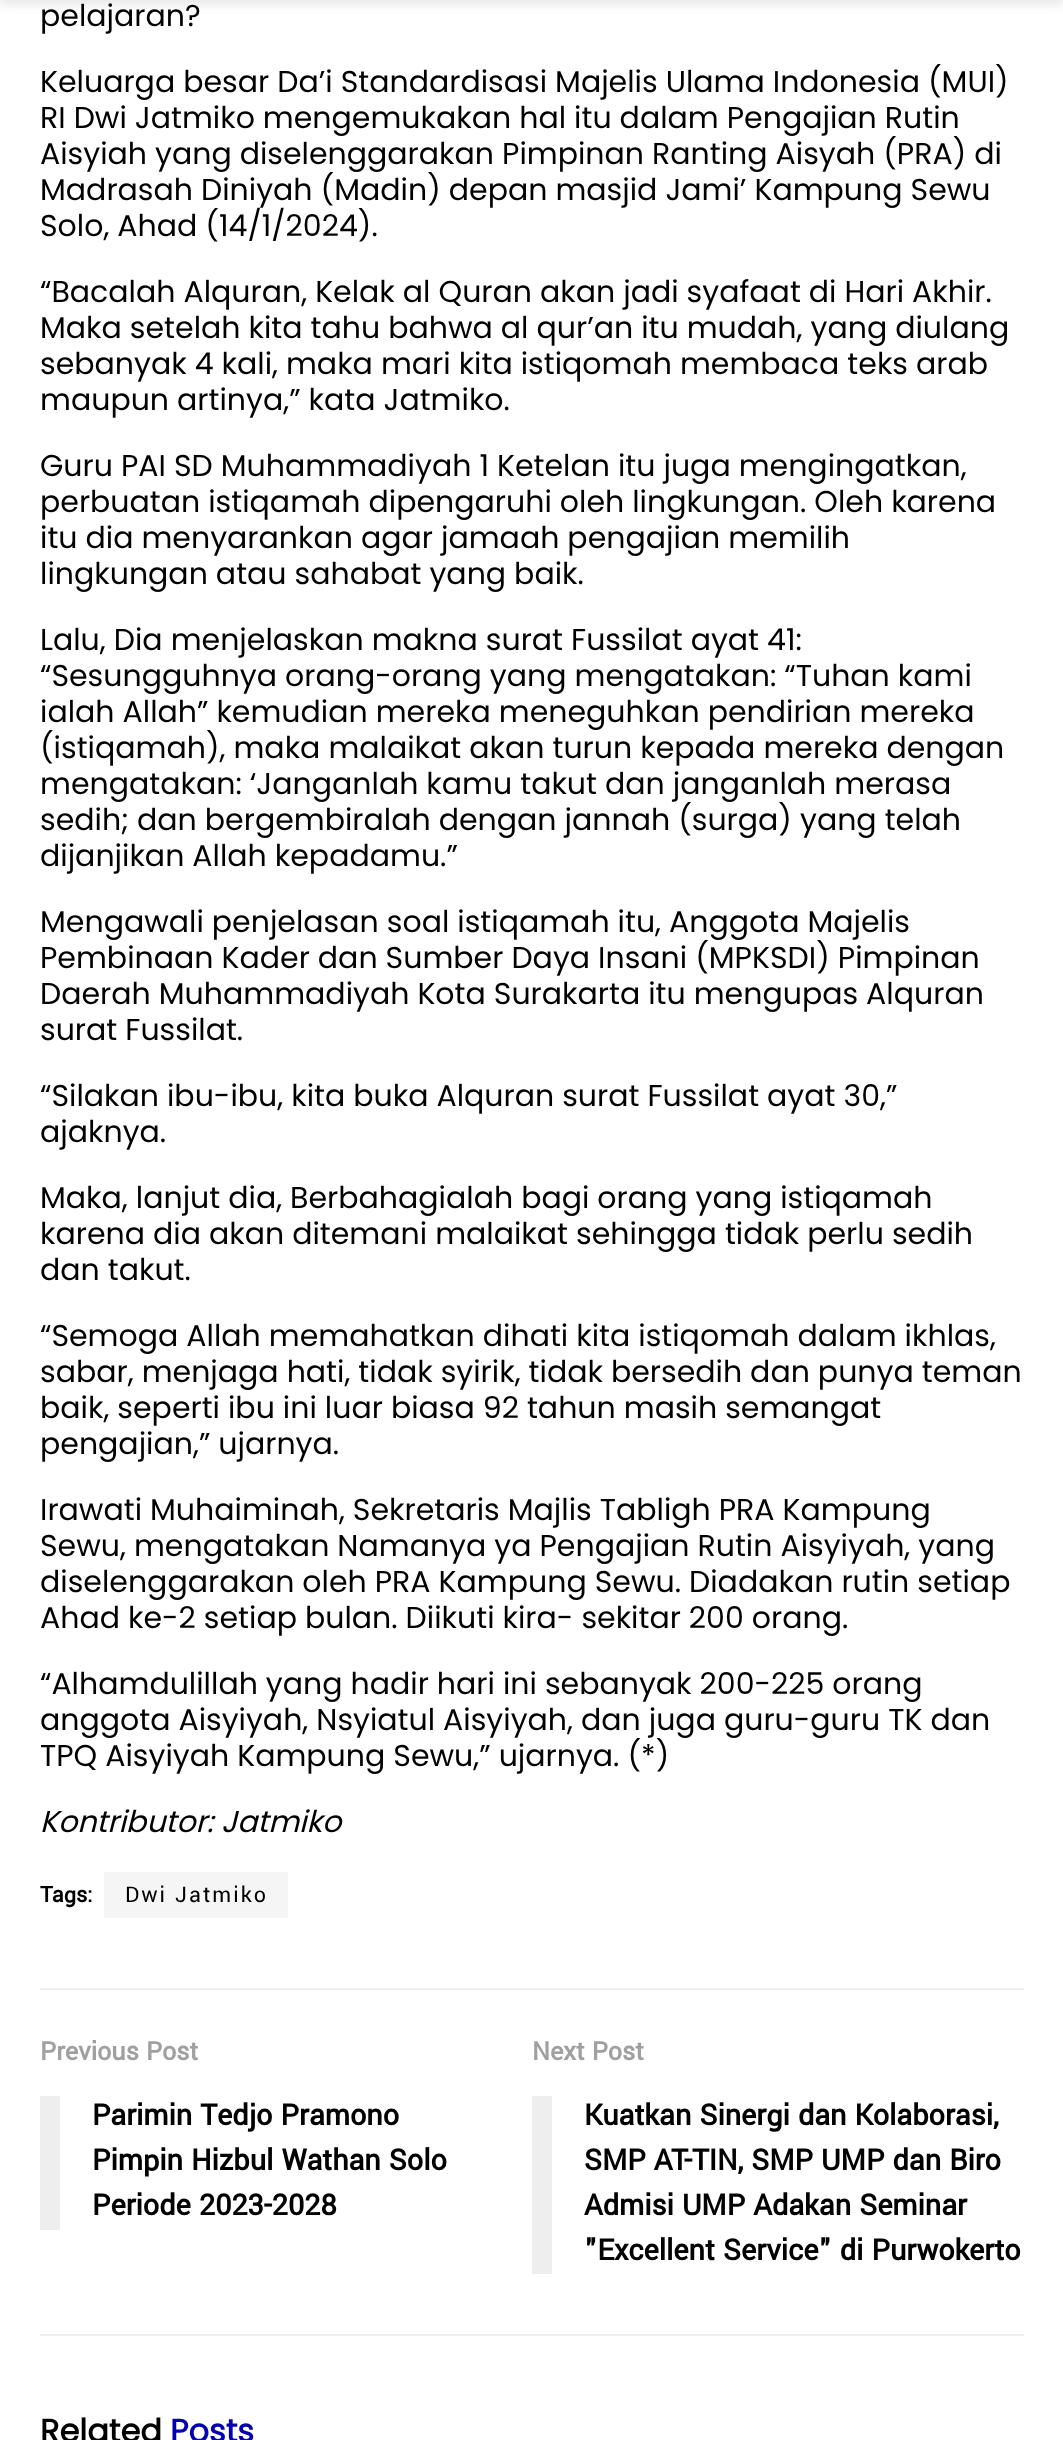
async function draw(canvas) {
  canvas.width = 1063
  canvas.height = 2440
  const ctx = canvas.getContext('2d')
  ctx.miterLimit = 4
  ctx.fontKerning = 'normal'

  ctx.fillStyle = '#fff'
  ctx.fillRect(0, 0, 1063, 2440)
  ctx.fillStyle = '#0000001a'
  ctx.filter = 'blur(6px)'
  ctx.beginPath()
  ctx.rect(0, -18, 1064, 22)
  ctx.fill()
  ctx.filter = 'none'
  ctx.font = '30px Poppins'
  ctx.fillStyle = '#000'
  ctx.fillText('pelajaran?', 40, 26)
  ctx.fillText('Keluarga besar Da’i Standardisasi Majelis Ulama Indonesia (MUI)', 40, 92)
  ctx.fillText('RI Dwi Jatmiko mengemukakan hal itu dalam Pengajian Rutin', 40, 128)
  ctx.fillText('Aisyiah yang diselenggarakan Pimpinan Ranting Aisyah (PRA) di', 40, 164)
  ctx.fillText('Madrasah Diniyah (Madin) depan masjid Jami’ Kampung Sewu', 40, 200)
  ctx.fillText('Solo, Ahad (14/1/2024).', 40, 236)
  ctx.fillText('“Bacalah Alquran, Kelak al Quran akan jadi syafaat di Hari Akhir.', 40, 302)
  ctx.fillText('Maka setelah kita tahu bahwa al qur’an itu mudah, yang diulang', 40, 338)
  ctx.fillText('sebanyak 4 kali, maka mari kita istiqomah membaca teks arab', 40, 374)
  ctx.fillText('maupun artinya,” kata Jatmiko.', 40, 410)
  ctx.fillText('Guru PAI SD Muhammadiyah 1 Ketelan itu juga mengingatkan,', 40, 476)
  ctx.fillText('perbuatan istiqamah dipengaruhi oleh lingkungan. Oleh karena', 40, 512)
  ctx.fillText('itu dia menyarankan agar jamaah pengajian memilih', 40, 548)
  ctx.fillText('lingkungan atau sahabat yang baik.', 40, 584)
  ctx.fillText('Lalu, Dia menjelaskan makna surat Fussilat ayat 41:', 40, 650)
  ctx.fillText('“Sesungguhnya orang-orang yang mengatakan: “Tuhan kami', 40, 686)
  ctx.fillText('ialah Allah” kemudian mereka meneguhkan pendirian mereka', 40, 722)
  ctx.fillText('(istiqamah), maka malaikat akan turun kepada mereka dengan', 40, 758)
  ctx.fillText('mengatakan: ‘Janganlah kamu takut dan janganlah merasa', 40, 794)
  ctx.fillText('sedih; dan bergembiralah dengan jannah (surga) yang telah', 40, 830)
  ctx.fillText('dijanjikan Allah kepadamu.”', 40, 866)
  ctx.fillText('Mengawali penjelasan soal istiqamah itu, Anggota Majelis', 40, 932)
  ctx.fillText('Pembinaan Kader dan Sumber Daya Insani (MPKSDI) Pimpinan', 40, 968)
  ctx.fillText('Daerah Muhammadiyah Kota Surakarta itu mengupas Alquran', 40, 1004)
  ctx.fillText('surat Fussilat.', 40, 1040)
  ctx.fillText('“Silakan ibu-ibu, kita buka Alquran surat Fussilat ayat 30,”', 40, 1106)
  ctx.fillText('ajaknya.', 40, 1142)
  ctx.fillText('Maka, lanjut dia, Berbahagialah bagi orang yang istiqamah', 40, 1208)
  ctx.fillText('karena dia akan ditemani malaikat sehingga tidak perlu sedih', 40, 1244)
  ctx.fillText('dan takut.', 40, 1280)
  ctx.fillText('“Semoga Allah memahatkan dihati kita istiqomah dalam ikhlas,', 40, 1346)
  ctx.fillText('sabar, menjaga hati, tidak syirik, tidak bersedih dan punya teman', 40, 1382)
  ctx.fillText('baik, seperti ibu ini luar biasa 92 tahun masih semangat', 40, 1418)
  ctx.fillText('pengajian,” ujarnya.', 40, 1454)
  ctx.fillText('Irawati Muhaiminah, Sekretaris Majlis Tabligh PRA Kampung', 40, 1520)
  ctx.fillText('Sewu, mengatakan Namanya ya Pengajian Rutin Aisyiyah, yang', 40, 1556)
  ctx.fillText('diselenggarakan oleh PRA Kampung Sewu. Diadakan rutin setiap', 40, 1592)
  ctx.fillText('Ahad ke-2 setiap bulan. Diikuti kira- sekitar 200 orang.', 40, 1628)
  ctx.fillText('“Alhamdulillah yang hadir hari ini sebanyak 200-225 orang', 40, 1694)
  ctx.fillText('anggota Aisyiyah, Nsyiatul Aisyiyah, dan juga guru-guru TK dan', 40, 1730)
  ctx.fillText('TPQ Aisyiyah Kampung Sewu,” ujarnya. (*)', 40, 1766)
  ctx.font = 'italic 30px Poppins'
  ctx.fillText('Kontributor: Jatmiko', 40, 1832)
  ctx.font = 'bold 24px Yantramanav'
  ctx.fillText('Tags:', 40, 1902)
  ctx.fillStyle = '#f5f5f5'
  ctx.fillRect(104, 1872, 184, 46)
  ctx.letterSpacing = '2px'
  ctx.font = '24px Yantramanav'
  ctx.fillStyle = '#000'
  ctx.fillText('Dwi Jatmiko', 125, 1902)
  ctx.fillStyle = '#eee'
  ctx.fillRect(40, 1988, 984, 2)
  ctx.fillRect(40, 2334, 984, 2)
  ctx.letterSpacing = '0px'
  ctx.font = 'bold 28px Yantramanav'
  ctx.fillStyle = '#a0a0a0'
  ctx.fillText('Previous Post', 40, 2060)
  ctx.fillStyle = '#eee'
  ctx.fillRect(40, 2096, 20, 134)
  ctx.font = 'bold 32px Yantramanav'
  ctx.fillStyle = '#000'
  ctx.fillText('Parimin Tedjo Pramono', 92, 2125)
  ctx.fillText('Pimpin Hizbul Wathan Solo', 92, 2170)
  ctx.fillText('Periode 2023-2028', 92, 2215)
  ctx.font = 'bold 28px Yantramanav'
  ctx.fillStyle = '#a0a0a0'
  ctx.fillText('Next Post', 532, 2060)
  ctx.fillStyle = '#eee'
  ctx.fillRect(532, 2096, 20, 178)
  ctx.font = 'bold 32px Yantramanav'
  ctx.fillStyle = '#000'
  ctx.fillText('Kuatkan Sinergi dan Kolaborasi,', 584, 2125)
  ctx.fillText('SMP AT-TIN, SMP UMP dan Biro', 584, 2170)
  ctx.fillText('Admisi UMP Adakan Seminar', 584, 2215)
  ctx.fillText('"Excellent Service" di Purwokerto', 584, 2260)
  ctx.font = 'bold 32px Poppins'
  ctx.fillText('Related', 40, 2442)
  ctx.fillStyle = '#0200b2'
  ctx.fillText('Posts', 170, 2442)
}

draw(document.querySelector('canvas'))
